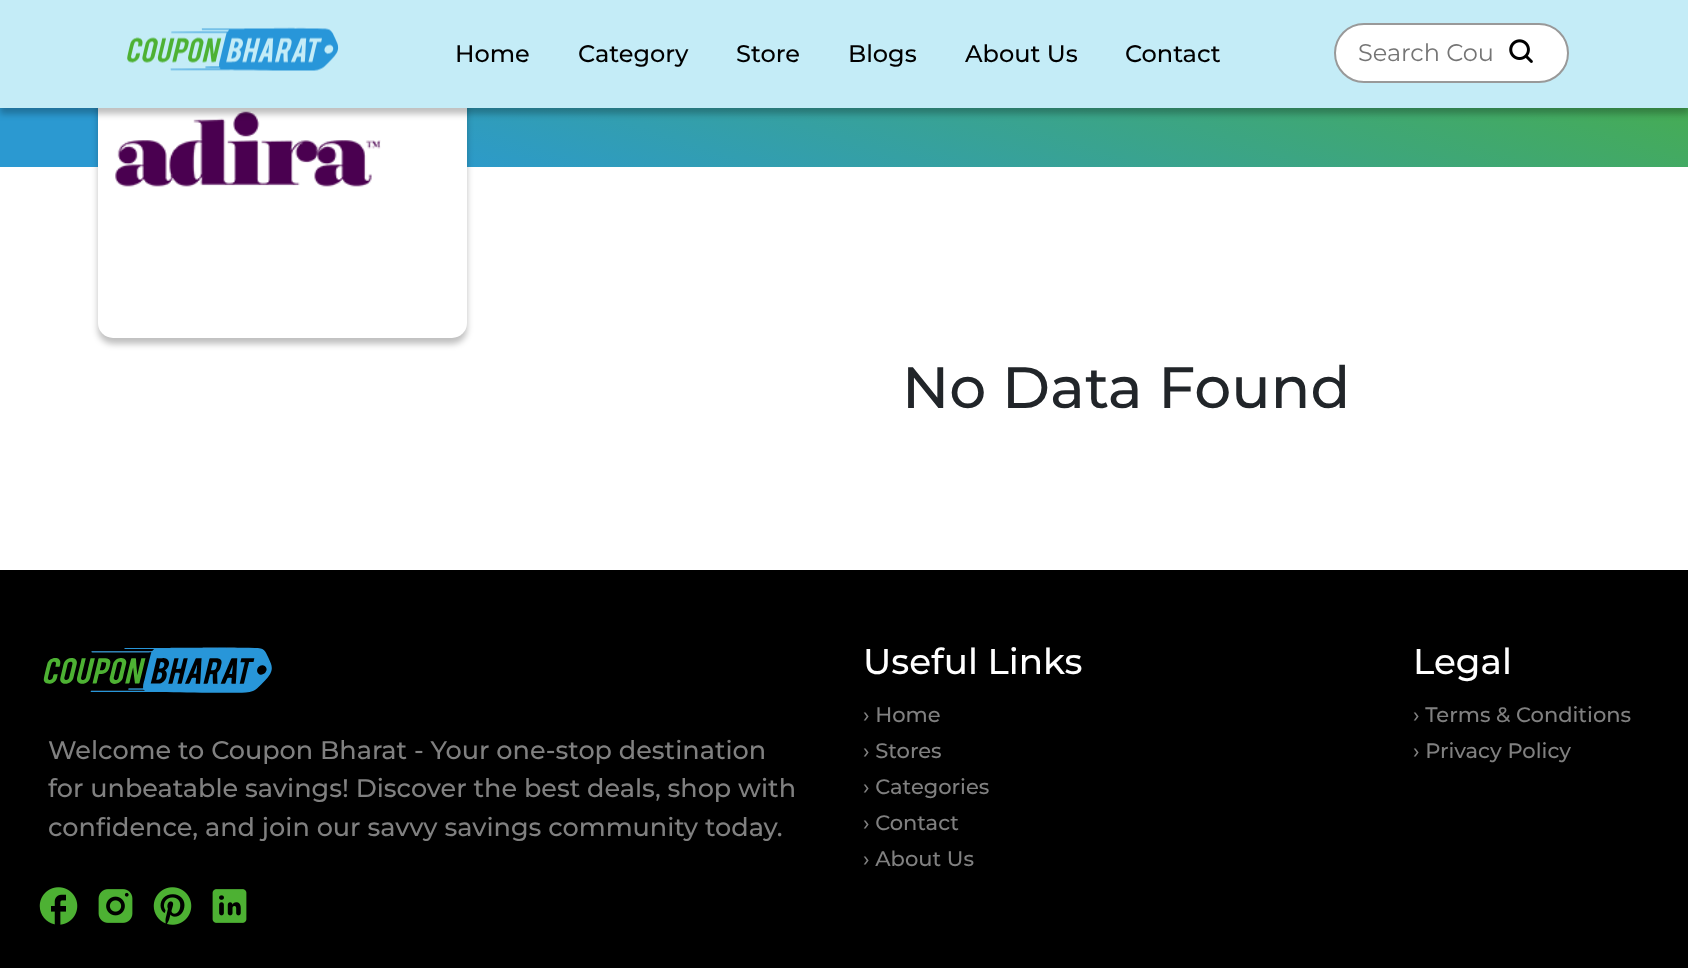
async function draw(canvas) {
  canvas.width = 1688
  canvas.height = 968
  const ctx = canvas.getContext('2d')
  ctx.miterLimit = 4
  ctx.fontKerning = 'normal'
  async function loadImage(src) {
    const img = new Image()
    img.src = src
    await img.decode()
    return img
  }
  let gradient

  ctx.fillStyle = '#fff'
  ctx.fillRect(0, 0, 1688, 968)
  gradient = ctx.createLinearGradient(724, 402, 965, -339)
  gradient.addColorStop(0.15, '#2b99d1')
  gradient.addColorStop(0.9, '#4db133')
  ctx.fillStyle = gradient
  ctx.fillRect(0, 108, 1688, 59)
  ctx.fillStyle = '#00000040'
  ctx.filter = 'blur(3px)'
  ctx.beginPath()
  ctx.roundRect(98, -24, 369, 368, 15)
  ctx.fill()
  ctx.filter = 'none'
  ctx.fillStyle = '#fff'
  ctx.beginPath()
  ctx.roundRect(98, -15, 369, 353, 15)
  ctx.fill()
  ctx.drawImage(await loadImage('image2.png'), 115, 111, 266, 76)
  ctx.fillStyle = '#00000040'
  ctx.filter = 'blur(3px)'
  ctx.beginPath()
  ctx.rect(0, 6, 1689, 108)
  ctx.fill()
  ctx.filter = 'none'
  ctx.fillStyle = '#c4ecf7'
  ctx.fillRect(0, 0, 1688, 108)
  ctx.drawImage(await loadImage('image0.png'), 127, 27, 212, 44)
  ctx.font = '500 24px Montserrat'
  ctx.fillStyle = '#000'
  ctx.fillText('Home', 455, 62)
  ctx.fillText('Category', 578, 62)
  ctx.fillText('Store', 736, 62)
  ctx.fillText('Blogs', 848, 62)
  ctx.fillText('About Us', 965, 62)
  ctx.fillText('Contact', 1125, 62)
  ctx.fillStyle = '#fff'
  ctx.beginPath()
  ctx.roundRect(1335, 24, 233, 58, 29)
  ctx.fill()
  ctx.strokeStyle = '#999'
  ctx.lineWidth = 2
  ctx.stroke()
  ctx.font = '24px Montserrat'
  ctx.fillStyle = '#757575'
  ctx.fillText('Search Cou', 1358, 61)
  ctx.drawImage(await loadImage('image1.png'), 1509, 39, 24, 24)
  ctx.font = '500 58.25px Montserrat'
  ctx.fillStyle = '#212529'
  ctx.fillText('No Data Found', 902, 408)
  ctx.fillStyle = '#000'
  ctx.fillRect(0, 570, 1688, 398)
  ctx.font = '500 35.75px Montserrat'
  ctx.fillStyle = '#fff'
  ctx.fillText('Useful Links', 863, 674)
  ctx.font = '500 21px Montserrat'
  ctx.fillStyle = '#808080'
  ctx.fillText('› Home', 863, 722)
  ctx.fillText('› Stores', 863, 758)
  ctx.fillText('› Categories', 863, 794)
  ctx.fillText('› Contact', 863, 830)
  ctx.fillText('› About Us', 863, 866)
  ctx.font = '500 35.75px Montserrat'
  ctx.fillStyle = '#fff'
  ctx.fillText('Legal', 1413, 674)
  ctx.font = '500 21px Montserrat'
  ctx.fillStyle = '#808080'
  ctx.fillText('› Terms & Conditions', 1413, 722)
  ctx.fillText('› Privacy Policy', 1413, 758)
  ctx.drawImage(await loadImage('image3.png'), 43, 647, 229, 46)
  ctx.font = '500 25.5px Montserrat'
  ctx.fillText('Welcome to Coupon Bharat - Your one-stop destination', 48, 759)
  ctx.fillText('for unbeatable savings! Discover the best deals, shop with', 48, 797)
  ctx.fillText('confidence, and join our savvy savings community today.', 48, 836)
  ctx.drawImage(await loadImage('image4.png'), 39, 887, 39, 38)
  ctx.drawImage(await loadImage('image5.png'), 98, 889, 35, 34)
  ctx.drawImage(await loadImage('image6.png'), 153, 887, 39, 38)
  ctx.drawImage(await loadImage('image7.png'), 212, 889, 35, 34)
}

draw(document.querySelector('canvas'))
